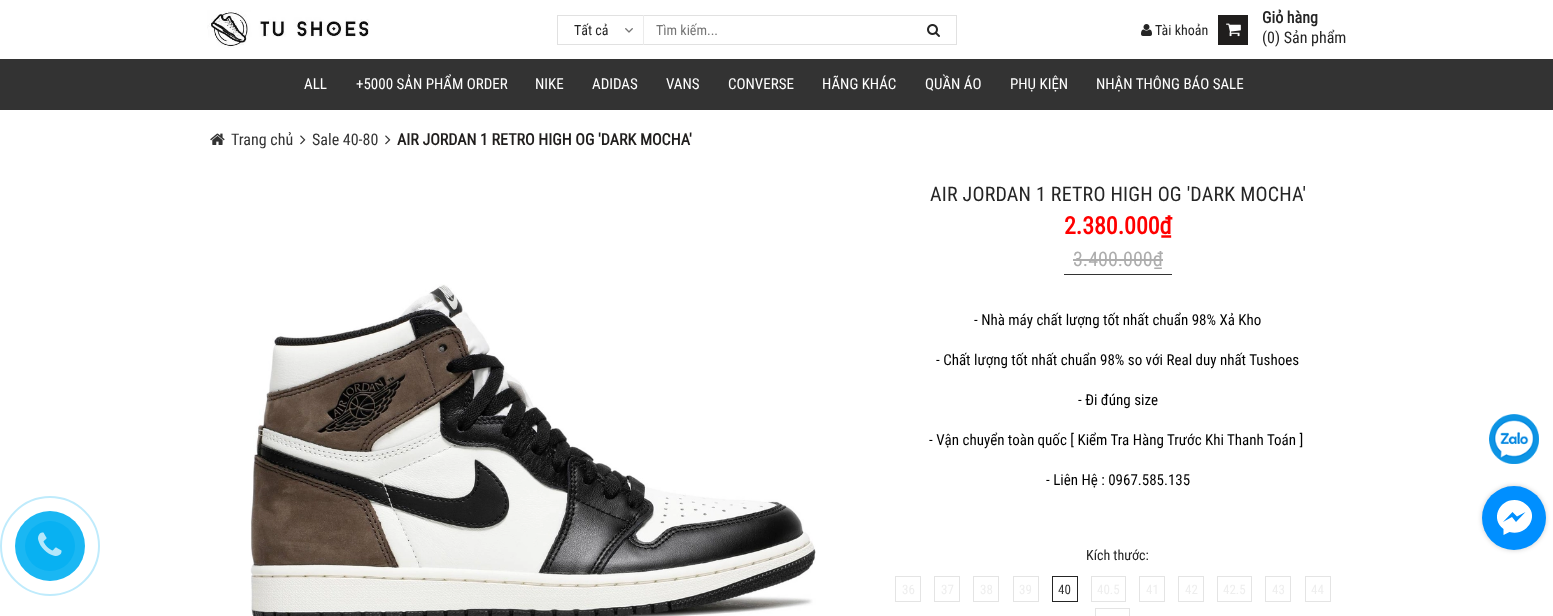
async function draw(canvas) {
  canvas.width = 1553
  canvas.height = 616
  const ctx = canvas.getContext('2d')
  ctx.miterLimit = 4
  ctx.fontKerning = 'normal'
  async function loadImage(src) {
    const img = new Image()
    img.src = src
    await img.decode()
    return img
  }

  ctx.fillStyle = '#fff'
  ctx.fillRect(0, 0, 1553, 616)
  ctx.drawImage(await loadImage('image0.png'), 207, 10, 162, 38)
  ctx.strokeStyle = '#e1e1e1'
  ctx.strokeRect(557.5, 15.5, 399, 29)
  ctx.drawImage(await loadImage('image1.png'), 625, 28, 8, 5)
  ctx.fillStyle = '#ebebeb'
  ctx.fillRect(643, 15, 1, 30)
  ctx.font = '14px Roboto Condensed'
  ctx.fillStyle = '#252525'
  ctx.fillText('Tất cả', 574, 35)
  ctx.fillStyle = '#757575'
  ctx.fillText('Tìm kiếm...', 656, 35)
  ctx.drawImage(await loadImage('image2.png'), 927, 24, 13, 13)
  ctx.drawImage(await loadImage('image3.png'), 1141, 24, 11, 12)
  ctx.fillStyle = '#252525'
  ctx.fillText('Tài khoản', 1155, 35)
  ctx.fillStyle = '#201e1d'
  ctx.fillRect(1218, 15, 30, 30)
  ctx.drawImage(await loadImage('image4.png'), 1226, 23, 15, 14)
  ctx.font = 'bold 16px Roboto Condensed'
  ctx.fillStyle = '#252525'
  ctx.fillText('Giỏ hàng', 1262, 23)
  ctx.font = '16px Roboto Condensed'
  ctx.fillText('(0) Sản phẩm', 1262, 43)
  ctx.fillStyle = '#333'
  ctx.fillRect(0, 59, 1553, 51)
  ctx.font = '15px Roboto Condensed'
  ctx.fillStyle = '#fff'
  ctx.fillText('ALL', 304, 89)
  ctx.fillText('+5000 SẢN PHẨM ORDER', 356, 89)
  ctx.fillText('NIKE', 535, 89)
  ctx.fillText('ADIDAS', 592, 89)
  ctx.fillText('VANS', 666, 89)
  ctx.fillText('CONVERSE', 728, 89)
  ctx.fillText('HÃNG KHÁC', 822, 89)
  ctx.fillText('QUẦN ÁO', 925, 89)
  ctx.fillText('PHỤ KIỆN', 1010, 89)
  ctx.fillText('NHẬN THÔNG BÁO SALE', 1096, 89)
  ctx.drawImage(await loadImage('image5.png'), 210, 133, 15, 12)
  ctx.font = '16px Roboto Condensed'
  ctx.fillStyle = '#333'
  ctx.fillText('Trang chủ', 231, 145)
  ctx.drawImage(await loadImage('image6.png'), 300, 135, 6, 10)
  ctx.fillText('Sale 40-80', 312, 145)
  ctx.drawImage(await loadImage('image6.png'), 385, 135, 6, 10)
  ctx.font = 'bold 16px Roboto Condensed'
  ctx.fillStyle = '#201e1d'
  ctx.fillText('AIR JORDAN 1 RETRO HIGH OG \'DARK MOCHA\'', 397, 145)
  ctx.drawImage(await loadImage('image7.png'), 250, 284, 566, 332)
  ctx.letterSpacing = '0.2px'
  ctx.font = '20px Roboto Condensed'
  ctx.fillStyle = '#252525'
  ctx.fillText('AIR JORDAN 1 RETRO HIGH OG \'DARK MOCHA\'', 930, 201)
  ctx.fillStyle = '#333'
  ctx.fillRect(1064, 274, 108, 1)
  ctx.letterSpacing = '0px'
  ctx.font = 'bold 24px Roboto Condensed'
  ctx.fillStyle = '#f00'
  ctx.fillText('2.380.000₫', 1064, 234)
  ctx.font = '20px Roboto Condensed'
  ctx.fillStyle = '#adadad'
  ctx.fillText('3.400.000₫', 1073, 266)
  ctx.fillRect(1073, 259, 90, 2)
  ctx.font = '15px Roboto Condensed'
  ctx.fillStyle = '#000'
  ctx.fillText('- Nhà máy chất lượng tốt nhất chuẩn 98% Xả Kho', 974, 325)
  ctx.fillText('- Chất lượng tốt nhất chuẩn 98% so với Real duy nhất Tushoes', 936, 365)
  ctx.fillText('- Đi đúng size', 1078, 405)
  ctx.fillText('- Vận chuyển toàn quốc [ Kiểm Tra Hàng Trước Khi Thanh Toán ]', 929, 445)
  ctx.fillText('- Liên Hệ : 0967.585.135', 1046, 485)
  ctx.font = '14px Roboto Condensed'
  ctx.fillStyle = '#252525'
  ctx.fillText('Kích thước:', 1086, 560)
  ctx.strokeStyle = '#e4e4e4'
  ctx.strokeRect(895.5, 576.5, 25, 25)
  ctx.font = '13px Roboto Condensed'
  ctx.fillStyle = '#eee'
  ctx.fillText('36', 902, 594)
  ctx.strokeRect(934.5, 576.5, 25, 25)
  ctx.fillText('37', 941, 594)
  ctx.strokeRect(973.5, 576.5, 25, 25)
  ctx.fillText('38', 980, 594)
  ctx.strokeRect(1013.5, 576.5, 25, 25)
  ctx.fillText('39', 1019, 594)
  ctx.strokeStyle = '#252525'
  ctx.strokeRect(1052.5, 576.5, 25, 25)
  ctx.fillStyle = '#333'
  ctx.fillText('40', 1058, 594)
  ctx.strokeStyle = '#e4e4e4'
  ctx.strokeRect(1091.5, 576.5, 34, 25)
  ctx.fillStyle = '#eee'
  ctx.fillText('40.5', 1097, 594)
  ctx.strokeRect(1139.5, 576.5, 25, 25)
  ctx.fillText('41', 1146, 594)
  ctx.strokeRect(1178.5, 576.5, 25, 25)
  ctx.fillText('42', 1185, 594)
  ctx.strokeRect(1217.5, 576.5, 34, 25)
  ctx.fillText('42.5', 1223, 594)
  ctx.strokeRect(1265.5, 576.5, 25, 25)
  ctx.fillText('43', 1272, 594)
  ctx.strokeRect(1305.5, 576.5, 25, 25)
  ctx.fillText('44', 1311, 594)
  ctx.strokeRect(1095.5, 608.5, 34, 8)
  ctx.drawImage(await loadImage('image8.png'), 1489, 414, 50, 50)
  ctx.beginPath()
  ctx.arc(50, 546, 49, 0, 2 * Math.PI)
  ctx.strokeStyle = '#bfebfc'
  ctx.lineWidth = 2
  ctx.stroke()
  ctx.fillStyle = '#1ab7f3'
  ctx.beginPath()
  ctx.arc(50, 546, 35, 0, 2 * Math.PI)
  ctx.fill()
  ctx.fillStyle = '#08b1f2'
  ctx.beginPath()
  ctx.arc(50, 546, 25, 0, 2 * Math.PI)
  ctx.fill()
  ctx.drawImage(await loadImage('image9.png'), 38, 532, 24, 24)
  ctx.fillStyle = '#00000033'
  ctx.filter = 'blur(2.5px)'
  ctx.beginPath()
  ctx.roundRect(1482, 486, 64, 64, 32)
  ctx.fill()
  ctx.filter = 'none'
  ctx.fillStyle = '#008fff'
  ctx.beginPath()
  ctx.arc(1514, 518, 32, 0, 2 * Math.PI)
  ctx.fill()
  ctx.fillStyle = '#fff'
  ctx.beginPath()
  ctx.moveTo(1514.5, 500)
  ctx.bezierCurveTo(1498.5, 500, 1490.5, 519.5, 1503.5, 529)
  ctx.lineTo(1503.5, 535)
  ctx.lineTo(1509.5, 532)
  ctx.bezierCurveTo(1526.5, 537, 1541, 515.5, 1525.5, 504)
  ctx.bezierCurveTo(1522.5, 501.5, 1518.5, 500, 1514.5, 500)
  ctx.closePath()
  ctx.moveTo(1516, 522)
  ctx.lineTo(1512, 517)
  ctx.lineTo(1503, 522)
  ctx.lineTo(1512.5, 512)
  ctx.lineTo(1517, 516.5)
  ctx.lineTo(1525.5, 512)
  ctx.closePath()
  ctx.fill()
}

draw(document.querySelector('canvas'))
